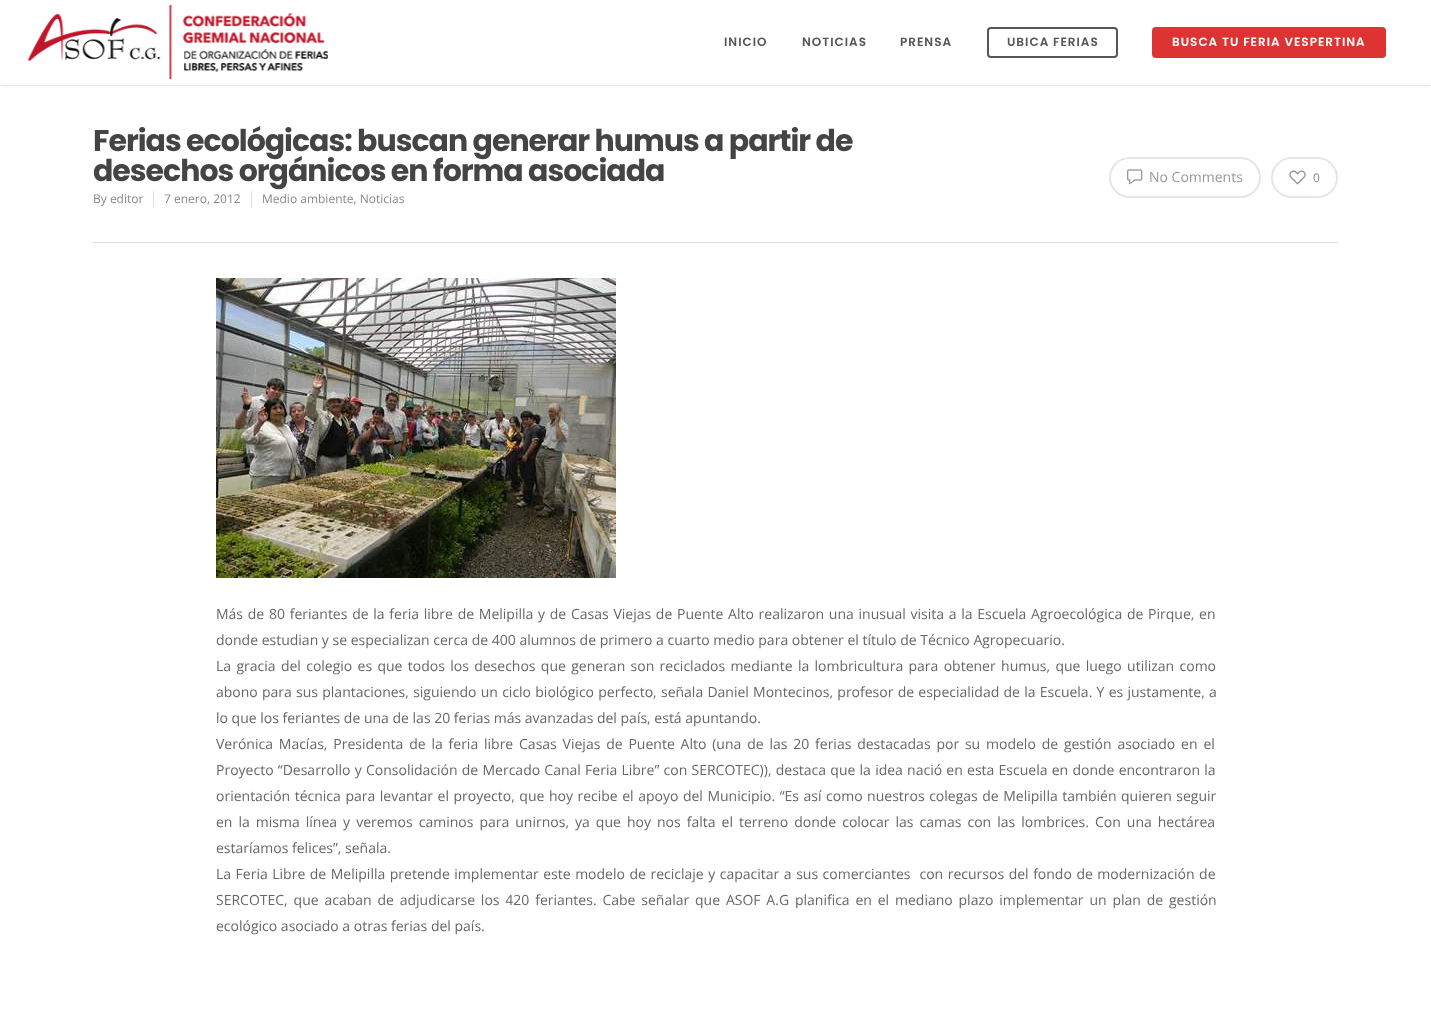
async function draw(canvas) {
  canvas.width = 1431
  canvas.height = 1014
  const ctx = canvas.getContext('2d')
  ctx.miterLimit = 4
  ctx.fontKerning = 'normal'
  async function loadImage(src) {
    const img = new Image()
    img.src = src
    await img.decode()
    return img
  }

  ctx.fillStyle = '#fff'
  ctx.fillRect(0, 0, 1431, 1014)
  ctx.fillStyle = '#00000038'
  ctx.filter = 'blur(1.5px)'
  ctx.beginPath()
  ctx.rect(0, 0, 1431, 85)
  ctx.fill()
  ctx.filter = 'none'
  ctx.fillStyle = '#fff'
  ctx.fillRect(0, 0, 1431, 85)
  ctx.drawImage(await loadImage('image0.png'), 28, 5, 300, 74)
  ctx.letterSpacing = '1px'
  ctx.font = '600 12px Poppins'
  ctx.fillStyle = '#565656'
  ctx.fillText('INICIO', 724, 46)
  ctx.fillText('NOTICIAS', 802, 46)
  ctx.fillText('PRENSA', 900, 46)
  ctx.beginPath()
  ctx.roundRect(988, 28, 129, 29, 3)
  ctx.strokeStyle = '#565656'
  ctx.lineWidth = 2
  ctx.stroke()
  ctx.fillText('UBICA FERIAS', 1007, 46)
  ctx.fillStyle = '#d33'
  ctx.beginPath()
  ctx.roundRect(1152, 27, 234, 31, 4)
  ctx.fill()
  ctx.fillStyle = '#fff'
  ctx.fillText('BUSCA TU FERIA VESPERTINA', 1172, 46)
  ctx.fillStyle = '#ddd'
  ctx.fillRect(93, 242, 1245, 1)
  ctx.letterSpacing = '-1px'
  ctx.font = 'bold 30px Poppins'
  ctx.fillStyle = '#444'
  ctx.fillText('Ferias ecológicas: buscan generar humus a partir de', 93, 151)
  ctx.fillText('desechos orgánicos en forma asociada', 93, 181)
  ctx.beginPath()
  ctx.roundRect(1110, 158, 150, 39, 19.5)
  ctx.strokeStyle = '#e6e6e6'
  ctx.stroke()
  ctx.drawImage(await loadImage('image1.png'), 1127, 169, 16, 16)
  ctx.letterSpacing = '0px'
  ctx.font = '14px Open Sans'
  ctx.fillStyle = '#999'
  ctx.fillText('No Comments', 1149, 182)
  ctx.beginPath()
  ctx.roundRect(1272, 158, 65, 39, 19.5)
  ctx.stroke()
  ctx.drawImage(await loadImage('image2.png'), 1289, 170, 17, 15)
  ctx.font = '12px Open Sans'
  ctx.fillStyle = '#888'
  ctx.fillText('0', 1313, 182)
  ctx.fillText('By editor', 93, 203)
  ctx.fillStyle = '#ddd'
  ctx.fillRect(153, 191, 1, 16)
  ctx.fillStyle = '#888'
  ctx.fillText('7 enero, 2012', 164, 203)
  ctx.fillStyle = '#ddd'
  ctx.fillRect(251, 191, 1, 16)
  ctx.fillStyle = '#888'
  ctx.fillText('Medio ambiente, Noticias', 262, 203)
  ctx.drawImage(await loadImage('image3.png'), 216, 278, 400, 300)
  ctx.wordSpacing = '1.1px'
  ctx.font = '14px Open Sans'
  ctx.fillStyle = '#676767'
  ctx.fillText('Más de 80 feriantes de la feria libre de Melipilla y de Casas Viejas de Puente Alto realizaron una inusual visita a la Escuela Agroecológica de Pirque, en', 216, 619)
  ctx.wordSpacing = '0px'
  ctx.fillText('donde estudian y se especializan cerca de 400 alumnos de primero a cuarto medio para obtener el título de Técnico Agropecuario.', 216, 645)
  ctx.wordSpacing = '1.7px'
  ctx.fillText('La gracia del colegio es que todos los desechos que generan son reciclados mediante la lombricultura para obtener humus, que luego utilizan como', 216, 671)
  ctx.wordSpacing = '0.6px'
  ctx.fillText('abono para sus plantaciones, siguiendo un ciclo biológico perfecto, señala Daniel Montecinos, profesor de especialidad de la Escuela. Y es justamente, a', 216, 697)
  ctx.wordSpacing = '0px'
  ctx.fillText('lo que los feriantes de una de las 20 ferias más avanzadas del país, está apuntando.', 216, 723)
  ctx.wordSpacing = '2.2px'
  ctx.fillText('Verónica Macías, Presidenta de la feria libre Casas Viejas de Puente Alto (una de las 20 ferias destacadas por su modelo de gestión asociado en el', 216, 749)
  ctx.wordSpacing = '0.6px'
  ctx.fillText('Proyecto “Desarrollo y Consolidación de Mercado Canal Feria Libre” con SERCOTEC)), destaca que la idea nació en esta Escuela en donde encontraron la', 216, 775)
  ctx.wordSpacing = '0.9px'
  ctx.fillText('orientación técnica para levantar el proyecto, que hoy recibe el apoyo del Municipio. “Es así como nuestros colegas de Melipilla también quieren seguir', 216, 801)
  ctx.wordSpacing = '2.4px'
  ctx.fillText('en la misma línea y veremos caminos para unirnos, ya que hoy nos falta el terreno donde colocar las camas con las lombrices. Con una hectárea', 216, 827)
  ctx.wordSpacing = '0px'
  ctx.fillText('estaríamos felices”, señala.', 216, 853)
  ctx.wordSpacing = '0.9px'
  ctx.fillText('La Feria Libre de Melipilla pretende implementar este modelo de reciclaje y capacitar a sus comerciantes  con recursos del fondo de modernización de', 216, 879)
  ctx.wordSpacing = '2.2px'
  ctx.fillText('SERCOTEC, que acaban de adjudicarse los 420 feriantes. Cabe señalar que ASOF A.G planifica en el mediano plazo implementar un plan de gestión', 216, 905)
  ctx.wordSpacing = '0px'
  ctx.fillText('ecológico asociado a otras ferias del país.', 216, 931)
}

draw(document.querySelector('canvas'))
